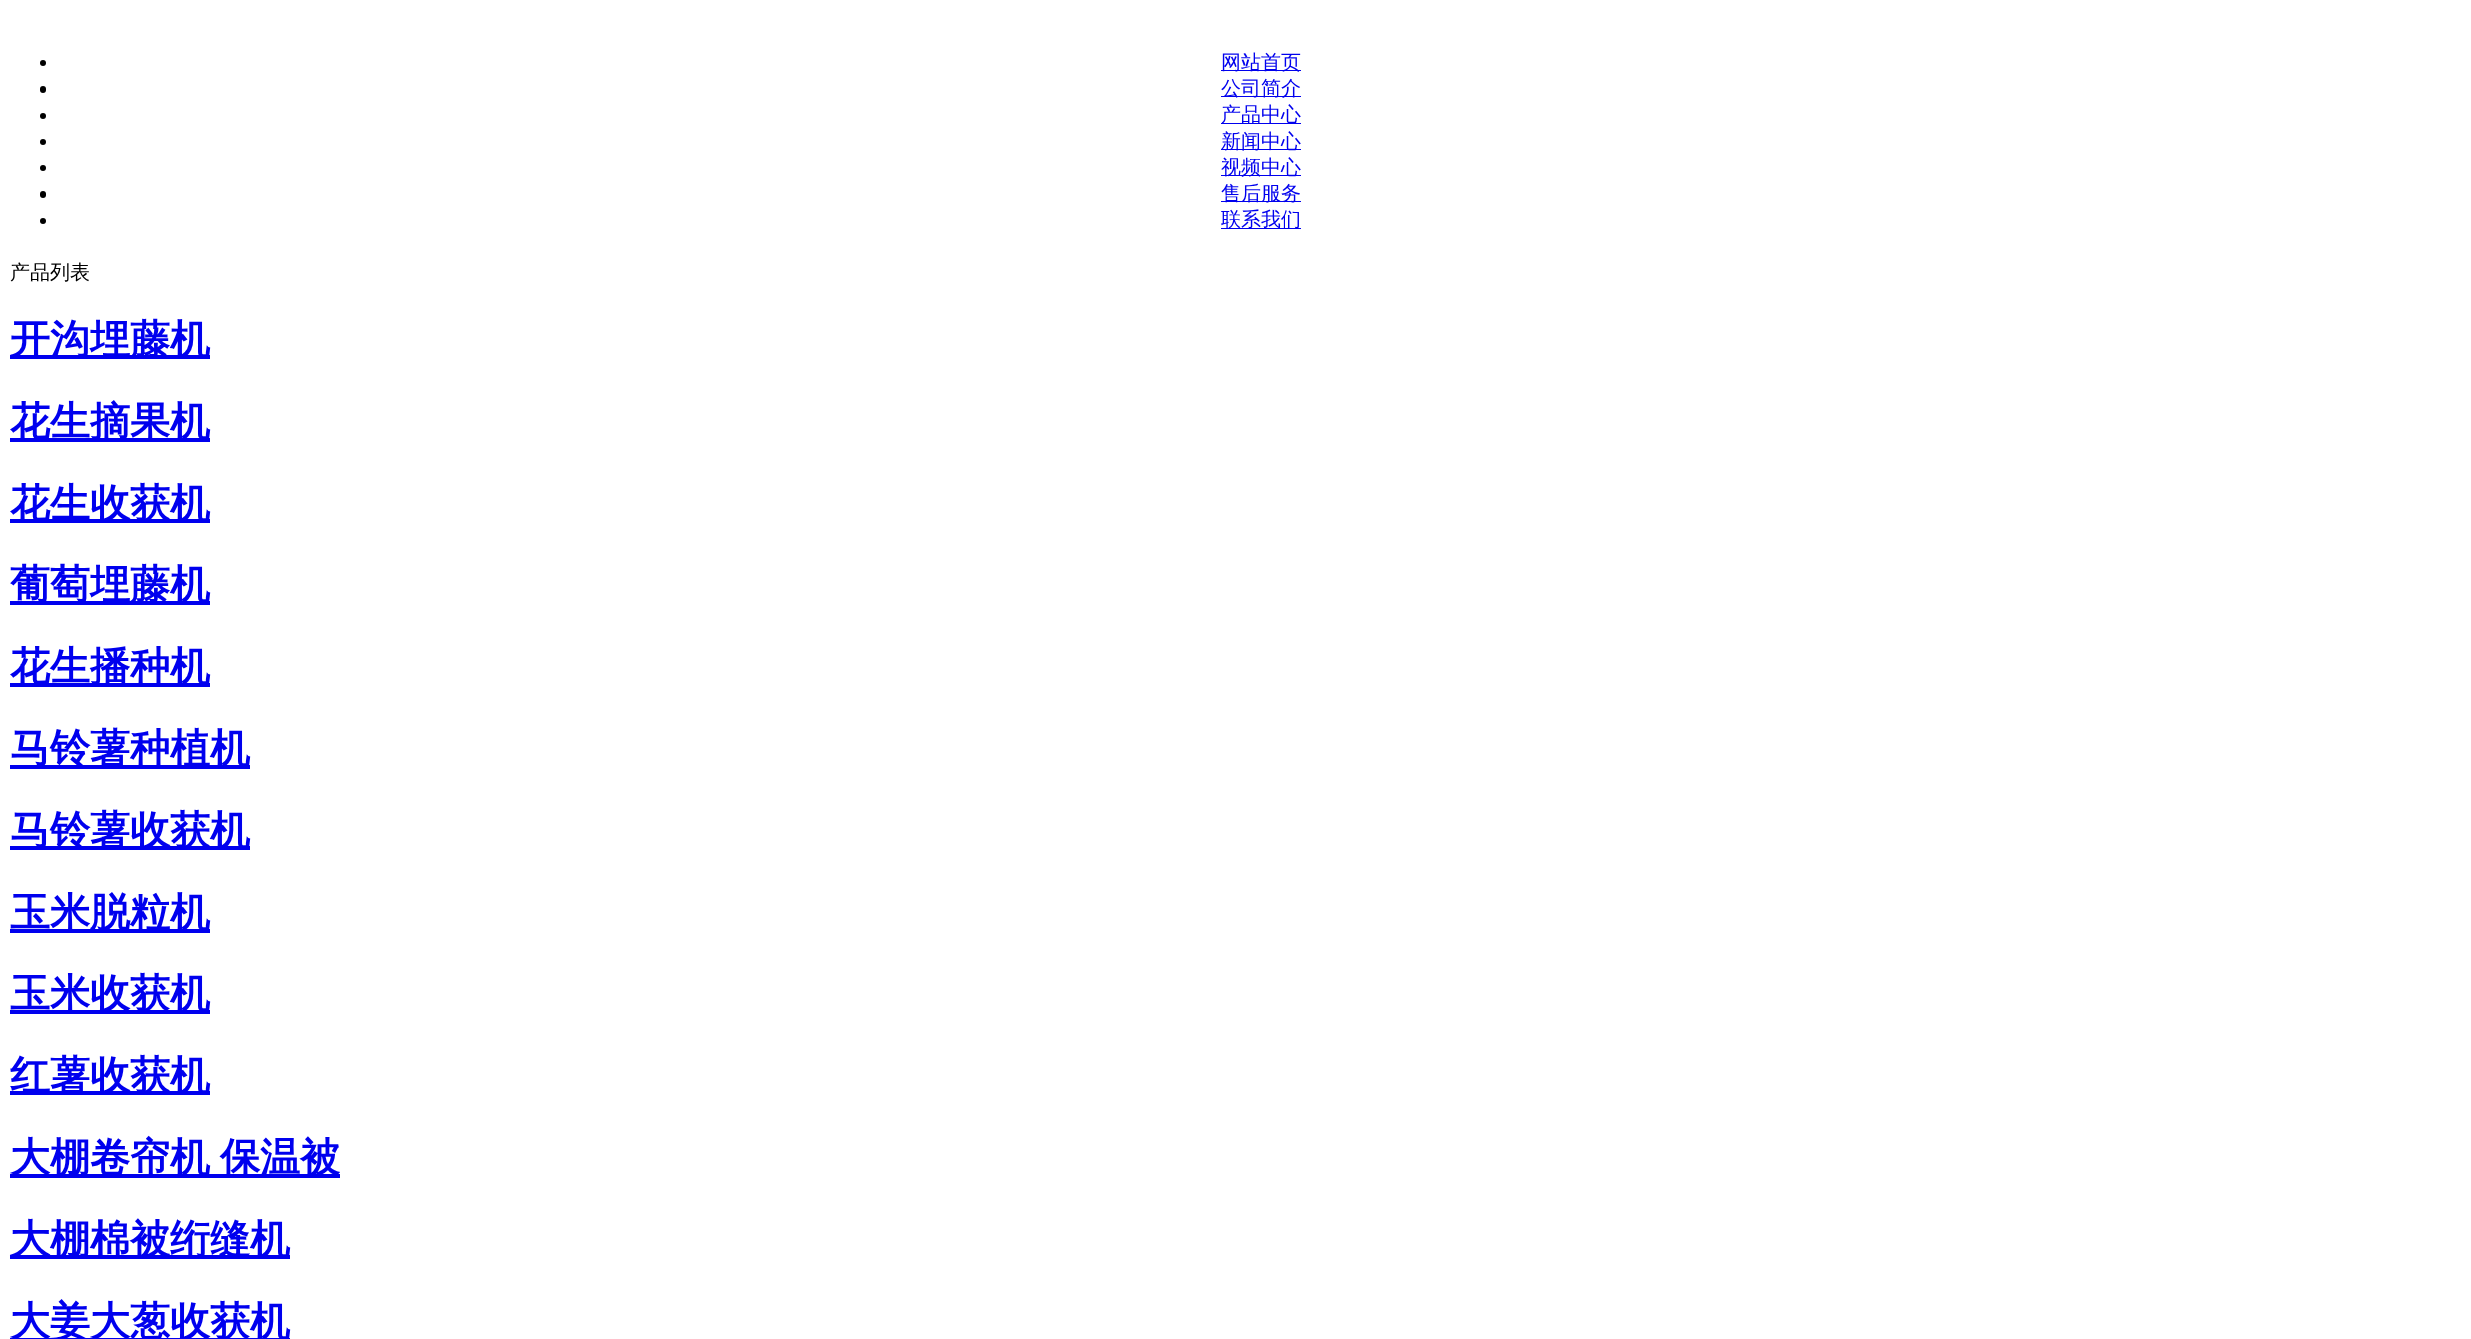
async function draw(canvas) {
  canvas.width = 2471
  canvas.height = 1339
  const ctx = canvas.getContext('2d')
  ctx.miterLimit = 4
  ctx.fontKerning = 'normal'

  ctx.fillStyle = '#fff'
  ctx.fillRect(0, 0, 2471, 1339)
  ctx.fillStyle = '#000'
  ctx.beginPath()
  ctx.arc(43, 63, 3, 0, 2 * Math.PI)
  ctx.fill()
  ctx.fillStyle = '#00e'
  ctx.fillRect(1221, 70, 80, 1)
  ctx.font = '500 20px WenQuanYi Zen Hei'
  ctx.fillText('网站首页', 1221, 69)
  ctx.fillStyle = '#000'
  ctx.beginPath()
  ctx.roundRect(40, 86, 6, 7, 3)
  ctx.fill()
  ctx.fillStyle = '#00e'
  ctx.fillRect(1221, 96, 80, 1)
  ctx.fillText('公司简介', 1221, 95)
  ctx.fillStyle = '#000'
  ctx.beginPath()
  ctx.arc(43, 116, 3, 0, 2 * Math.PI)
  ctx.fill()
  ctx.fillStyle = '#00e'
  ctx.fillRect(1221, 123, 80, 1)
  ctx.fillText('产品中心', 1221, 121)
  ctx.fillStyle = '#000'
  ctx.beginPath()
  ctx.arc(43, 142, 3, 0, 2 * Math.PI)
  ctx.fill()
  ctx.fillStyle = '#00e'
  ctx.fillRect(1221, 149, 80, 1)
  ctx.fillText('新闻中心', 1221, 148)
  ctx.fillStyle = '#000'
  ctx.beginPath()
  ctx.arc(43, 168, 3, 0, 2 * Math.PI)
  ctx.fill()
  ctx.fillStyle = '#00e'
  ctx.fillRect(1221, 175, 80, 1)
  ctx.fillText('视频中心', 1221, 174)
  ctx.fillStyle = '#000'
  ctx.beginPath()
  ctx.roundRect(40, 191, 6, 7, 3)
  ctx.fill()
  ctx.fillStyle = '#00e'
  ctx.fillRect(1221, 201, 80, 1)
  ctx.fillText('售后服务', 1221, 200)
  ctx.fillStyle = '#000'
  ctx.beginPath()
  ctx.arc(43, 221, 3, 0, 2 * Math.PI)
  ctx.fill()
  ctx.fillStyle = '#00e'
  ctx.fillRect(1221, 228, 80, 1)
  ctx.fillText('联系我们', 1221, 226)
  ctx.fillStyle = '#000'
  ctx.fillText('产品列表', 10, 279)
  ctx.fillStyle = '#00e'
  ctx.fillRect(10, 355, 200, 4)
  ctx.font = 'bold 40px WenQuanYi Zen Hei'
  ctx.fillText('开沟埋藤机', 10, 353)
  ctx.fillRect(10, 438, 200, 4)
  ctx.fillText('花生摘果机', 10, 435)
  ctx.fillRect(10, 519, 200, 4)
  ctx.fillText('花生收获机', 10, 517)
  ctx.fillRect(10, 601, 200, 4)
  ctx.fillText('葡萄埋藤机', 10, 598)
  ctx.fillRect(10, 683, 200, 4)
  ctx.fillText('花生播种机', 10, 680)
  ctx.fillRect(10, 765, 240, 4)
  ctx.fillText('马铃薯种植机', 10, 762)
  ctx.fillRect(10, 846, 240, 4)
  ctx.fillText('马铃薯收获机', 10, 844)
  ctx.fillRect(10, 929, 200, 4)
  ctx.fillText('玉米脱粒机', 10, 926)
  ctx.fillRect(10, 1010, 200, 4)
  ctx.fillText('玉米收获机', 10, 1007)
  ctx.fillRect(10, 1091, 200, 4)
  ctx.fillText('红薯收获机', 10, 1089)
  ctx.fillRect(10, 1174, 330, 4)
  ctx.wordSpacing = '-2px'
  ctx.fillText('大棚卷帘机 保温被', 10, 1171)
  ctx.fillRect(10, 1255, 280, 4)
  ctx.wordSpacing = '0px'
  ctx.fillText('大棚棉被绗缝机', 10, 1253)
  ctx.fillRect(10, 1338, 280, 1)
  ctx.fillText('大姜大葱收获机', 10, 1335)
}

draw(document.querySelector('canvas'))
